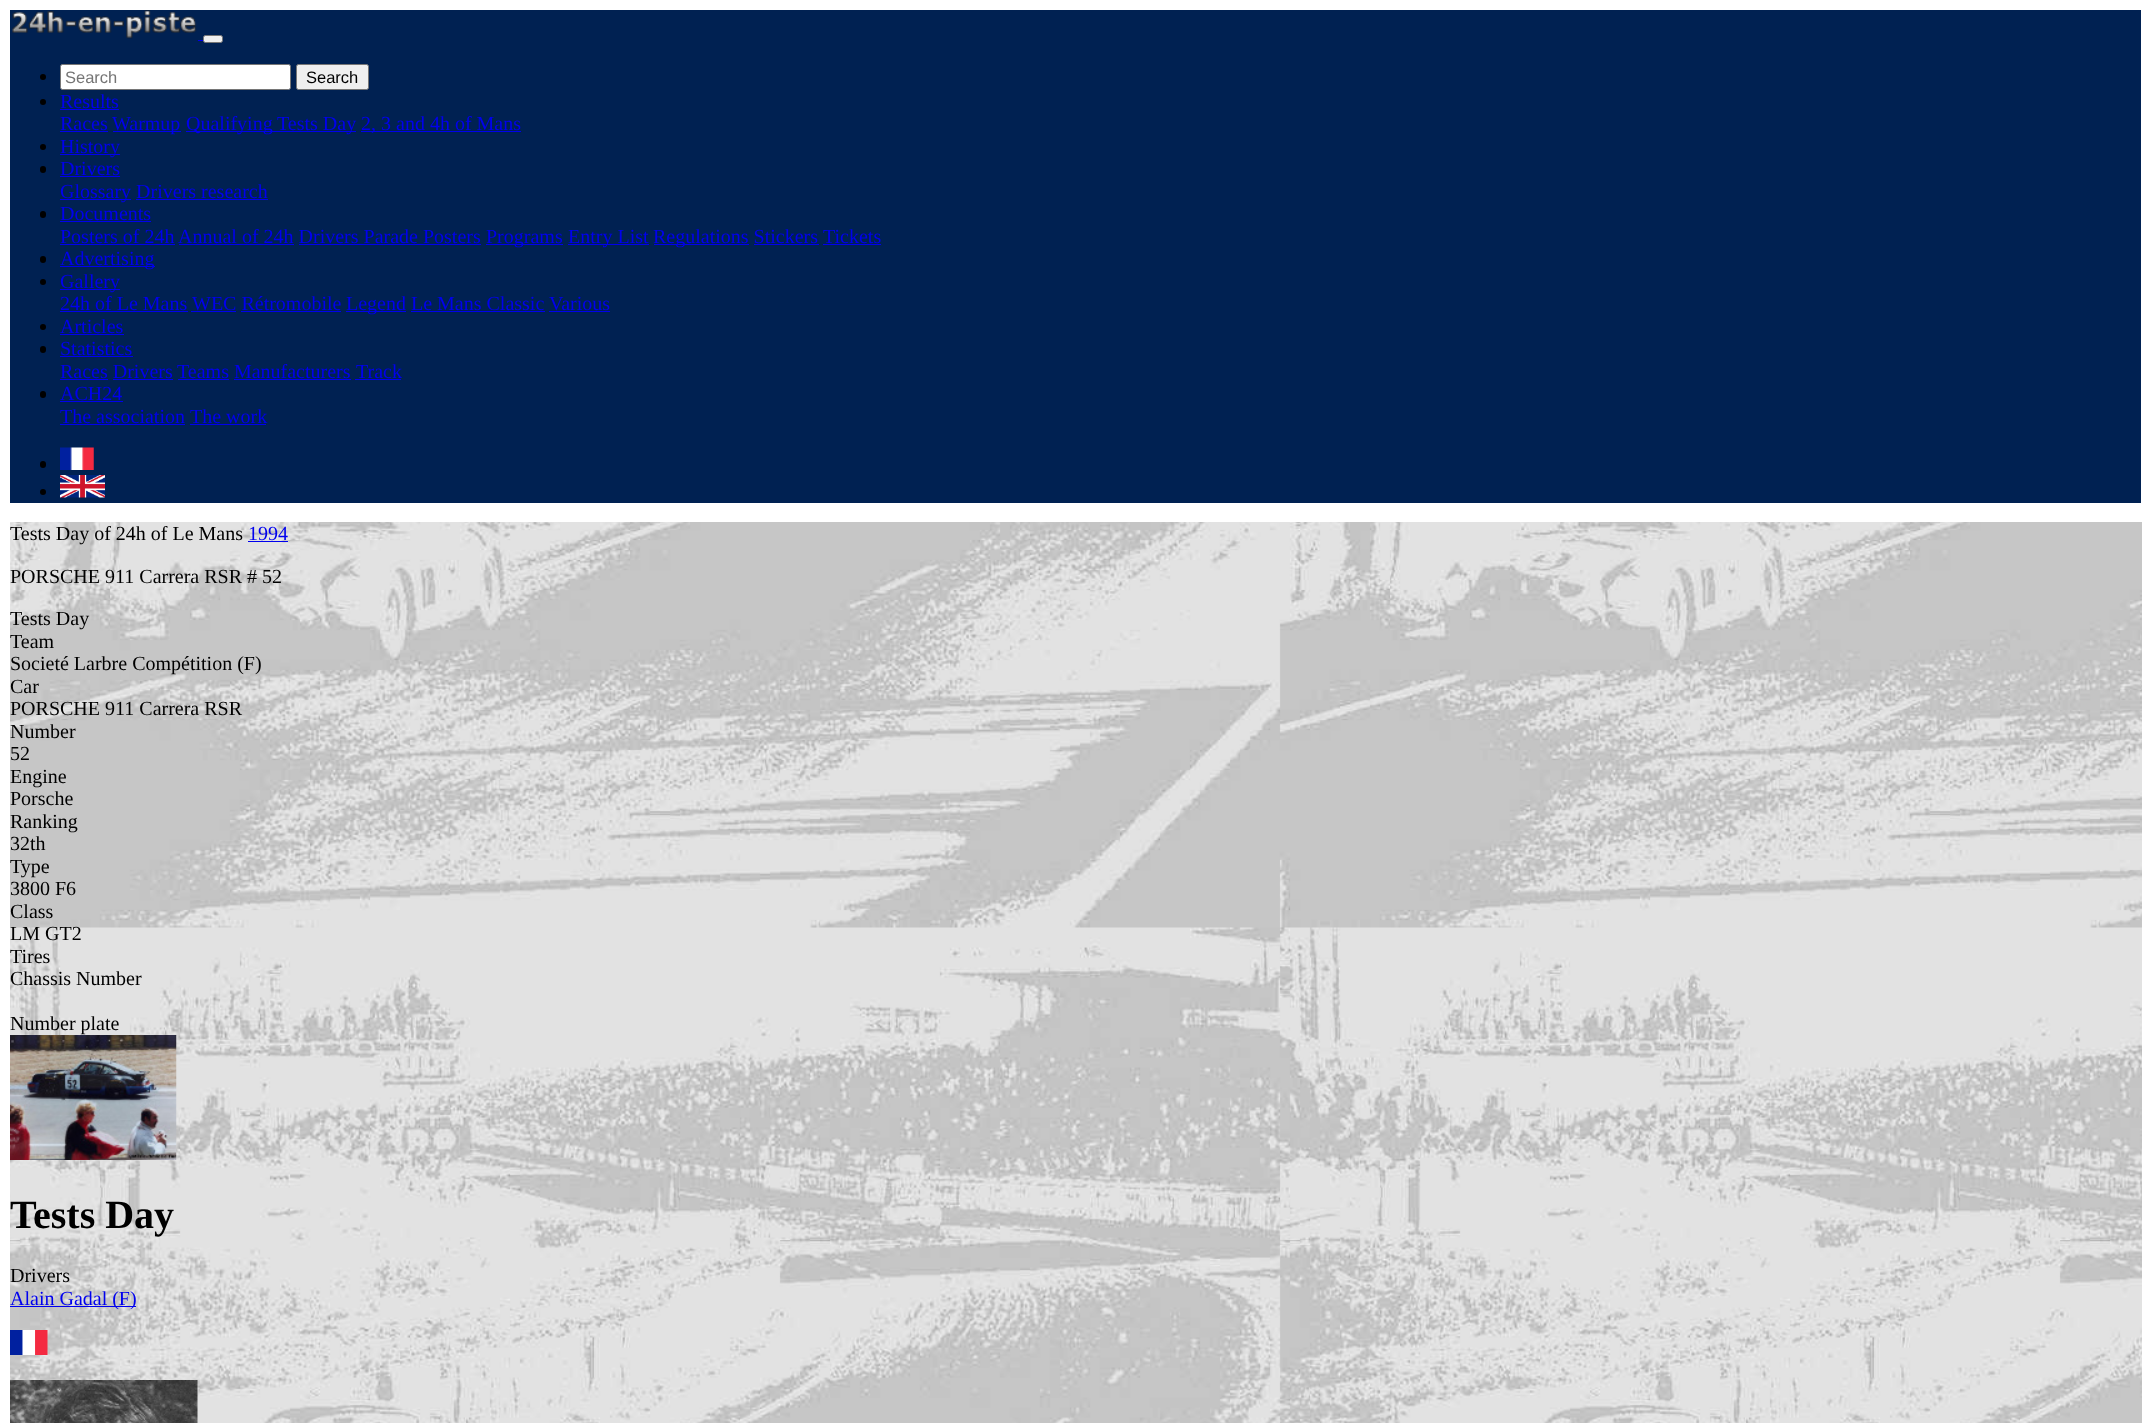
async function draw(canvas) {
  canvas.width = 2151
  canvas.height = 1423
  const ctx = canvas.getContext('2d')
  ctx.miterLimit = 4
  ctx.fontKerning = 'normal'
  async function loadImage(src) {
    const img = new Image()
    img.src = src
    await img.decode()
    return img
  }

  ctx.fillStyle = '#fff'
  ctx.fillRect(0, 0, 2151, 1423)
  ctx.fillStyle = '#002152'
  ctx.fillRect(10, 10, 2131, 493)
  ctx.drawImage(await loadImage('image0.png'), 12, 10, 185, 29)
  ctx.fillStyle = '#00e'
  ctx.fillRect(198, 40, 5, 1)
  ctx.fillStyle = '#efefef'
  ctx.beginPath()
  ctx.roundRect(203.5, 35.5, 19, 7, 2)
  ctx.fill()
  ctx.strokeStyle = '#767676'
  ctx.stroke()
  ctx.fillStyle = '#000'
  ctx.beginPath()
  ctx.arc(43, 77, 3, 0, 2 * Math.PI)
  ctx.fill()
  ctx.fillStyle = '#fff'
  ctx.beginPath()
  ctx.roundRect(60.5, 64.5, 230, 25, 2)
  ctx.fill()
  ctx.stroke()
  ctx.font = '16.5px Liberation Sans'
  ctx.fillStyle = '#757575'
  ctx.fillText('Search', 65, 83)
  ctx.fillStyle = '#efefef'
  ctx.beginPath()
  ctx.roundRect(296.5, 64.5, 72, 25, 2)
  ctx.fill()
  ctx.stroke()
  ctx.fillStyle = '#000'
  ctx.fillText('Search', 306, 83)
  ctx.beginPath()
  ctx.arc(43, 102, 3, 0, 2 * Math.PI)
  ctx.fill()
  ctx.font = '20px Liberation Serif'
  ctx.fillStyle = '#00e'
  ctx.fillText('Results', 60, 108)
  ctx.fillRect(60, 109, 59, 1)
  ctx.fillText('Races', 60, 130)
  ctx.fillRect(60, 131, 48, 1)
  ctx.fillRect(113, 131, 68, 1)
  ctx.fillText('Warmup', 112, 130)
  ctx.fillRect(186, 131, 170, 1)
  ctx.fillText('Qualifying', 186, 130)
  ctx.fillText('Tests Day', 277, 130)
  ctx.fillRect(361, 131, 160, 1)
  ctx.fillText('2, 3 and 4h of Mans', 361, 130)
  ctx.fillStyle = '#000'
  ctx.beginPath()
  ctx.arc(43, 147, 3, 0, 2 * Math.PI)
  ctx.fill()
  ctx.fillStyle = '#00e'
  ctx.fillRect(60, 154, 60, 1)
  ctx.fillText('History', 60, 153)
  ctx.fillStyle = '#000'
  ctx.beginPath()
  ctx.roundRect(40, 166, 6, 7, 3)
  ctx.fill()
  ctx.fillStyle = '#00e'
  ctx.fillText('Drivers', 60, 175)
  ctx.fillRect(60, 176, 60, 1)
  ctx.fillRect(60, 199, 71, 1)
  ctx.fillText('Glossary Drivers research', 60, 198)
  ctx.fillRect(136, 199, 132, 1)
  ctx.fillStyle = '#000'
  ctx.beginPath()
  ctx.roundRect(40, 211, 6, 7, 3)
  ctx.fill()
  ctx.fillStyle = '#00e'
  ctx.fillText('Documents', 60, 220)
  ctx.fillRect(60, 221, 91, 1)
  ctx.fillText('Posters of 24h', 60, 243)
  ctx.fillRect(60, 244, 115, 1)
  ctx.fillText('Annual of 24h Drivers Parade Posters', 178, 243)
  ctx.fillRect(179, 244, 115, 1)
  ctx.fillRect(486, 244, 77, 1)
  ctx.fillText('Programs', 486, 243)
  ctx.fillRect(568, 244, 81, 1)
  ctx.fillText('Entry List', 568, 243)
  ctx.fillRect(654, 244, 95, 1)
  ctx.fillText('Regulations Stickers', 653, 243)
  ctx.fillText('Tickets', 823, 243)
  ctx.fillRect(823, 244, 58, 1)
  ctx.fillRect(299, 244, 182, 1)
  ctx.fillRect(754, 244, 65, 1)
  ctx.fillStyle = '#000'
  ctx.beginPath()
  ctx.roundRect(40, 256, 6, 7, 3)
  ctx.fill()
  ctx.fillStyle = '#00e'
  ctx.fillRect(60, 266, 95, 1)
  ctx.fillText('Advertising', 60, 265)
  ctx.fillStyle = '#000'
  ctx.beginPath()
  ctx.arc(43, 282, 3, 0, 2 * Math.PI)
  ctx.fill()
  ctx.fillStyle = '#00e'
  ctx.fillRect(60, 289, 60, 1)
  ctx.fillText('Gallery', 60, 288)
  ctx.fillText('24h of Le Mans', 60, 310)
  ctx.fillRect(60, 311, 128, 1)
  ctx.fillText('WEC Rétromobile', 192, 310)
  ctx.fillRect(191, 311, 45, 1)
  ctx.fillRect(346, 311, 60, 1)
  ctx.fillText('Legend Le Mans Classic', 346, 310)
  ctx.fillText('Various', 549, 310)
  ctx.fillRect(549, 311, 61, 1)
  ctx.fillRect(241, 311, 100, 1)
  ctx.fillRect(411, 311, 134, 1)
  ctx.fillStyle = '#000'
  ctx.beginPath()
  ctx.arc(43, 327, 3, 0, 2 * Math.PI)
  ctx.fill()
  ctx.fillStyle = '#00e'
  ctx.fillText('Articles', 60, 333)
  ctx.fillRect(60, 334, 64, 1)
  ctx.fillStyle = '#000'
  ctx.beginPath()
  ctx.roundRect(40, 346, 6, 7, 3)
  ctx.fill()
  ctx.fillStyle = '#00e'
  ctx.fillText('Statistics', 60, 355)
  ctx.fillRect(60, 356, 73, 1)
  ctx.fillText('Races Drivers', 60, 378)
  ctx.fillRect(60, 379, 48, 1)
  ctx.fillText('Teams Manufacturers', 177, 378)
  ctx.fillRect(178, 379, 51, 1)
  ctx.fillText('Track', 356, 378)
  ctx.fillRect(355, 379, 46, 1)
  ctx.fillRect(113, 379, 60, 1)
  ctx.fillRect(234, 379, 117, 1)
  ctx.fillStyle = '#000'
  ctx.beginPath()
  ctx.roundRect(40, 391, 6, 7, 3)
  ctx.fill()
  ctx.fillStyle = '#00e'
  ctx.fillText('ACH24', 60, 400)
  ctx.fillRect(60, 401, 63, 1)
  ctx.fillText('The association', 60, 423)
  ctx.fillRect(60, 424, 125, 1)
  ctx.fillText('The work', 190, 423)
  ctx.fillRect(190, 424, 76, 1)
  ctx.fillStyle = '#000'
  ctx.beginPath()
  ctx.roundRect(40, 461, 6, 7, 3)
  ctx.fill()
  ctx.drawImage(await loadImage('image1.png'), 60, 447, 34, 23)
  ctx.beginPath()
  ctx.arc(43, 492, 3, 0, 2 * Math.PI)
  ctx.fill()
  ctx.drawImage(await loadImage('image2.png'), 60, 475, 45, 23)
  ctx.drawImage(await loadImage('image3.png'), 10, 522, 2132, 901)
  ctx.fillText('Tests Day of 24h of Le Mans', 10, 540)
  ctx.fillStyle = '#00e'
  ctx.fillText('1994', 248, 540)
  ctx.fillRect(248, 541, 40, 1)
  ctx.fillStyle = '#000'
  ctx.fillText('PORSCHE 911 Carrera RSR # 52', 10, 583)
  ctx.fillText('Tests Day', 10, 625)
  ctx.fillText('Team', 10, 648)
  ctx.fillText('Societé Larbre Compétition (F)', 10, 670)
  ctx.fillText('Car', 10, 693)
  ctx.fillText('PORSCHE 911 Carrera RSR', 10, 715)
  ctx.fillText('Number', 10, 738)
  ctx.fillText('52', 10, 760)
  ctx.fillText('Engine', 10, 783)
  ctx.fillText('Porsche', 10, 805)
  ctx.fillText('Ranking', 10, 828)
  ctx.fillText('32th', 10, 850)
  ctx.fillText('Type', 10, 873)
  ctx.fillText('3800 F6', 10, 895)
  ctx.fillText('Class', 10, 918)
  ctx.fillText('LM GT2', 10, 940)
  ctx.fillText('Tires', 10, 963)
  ctx.fillText('Chassis Number', 10, 985)
  ctx.fillText('Number plate', 10, 1030)
  ctx.drawImage(await loadImage('image4.png'), 10, 1035, 167, 125)
  ctx.font = 'bold 40px Liberation Serif'
  ctx.fillText('Tests Day', 10, 1228)
  ctx.font = '20px Liberation Serif'
  ctx.fillText('Drivers', 10, 1282)
  ctx.fillStyle = '#00e'
  ctx.fillRect(10, 1306, 126, 1)
  ctx.fillText('Alain Gadal (F)', 10, 1305)
  ctx.drawImage(await loadImage('image5.png'), 10, 1330, 38, 25)
  ctx.drawImage(await loadImage('image6.png'), 10, 1380, 188, 43)
}

draw(document.querySelector('canvas'))
